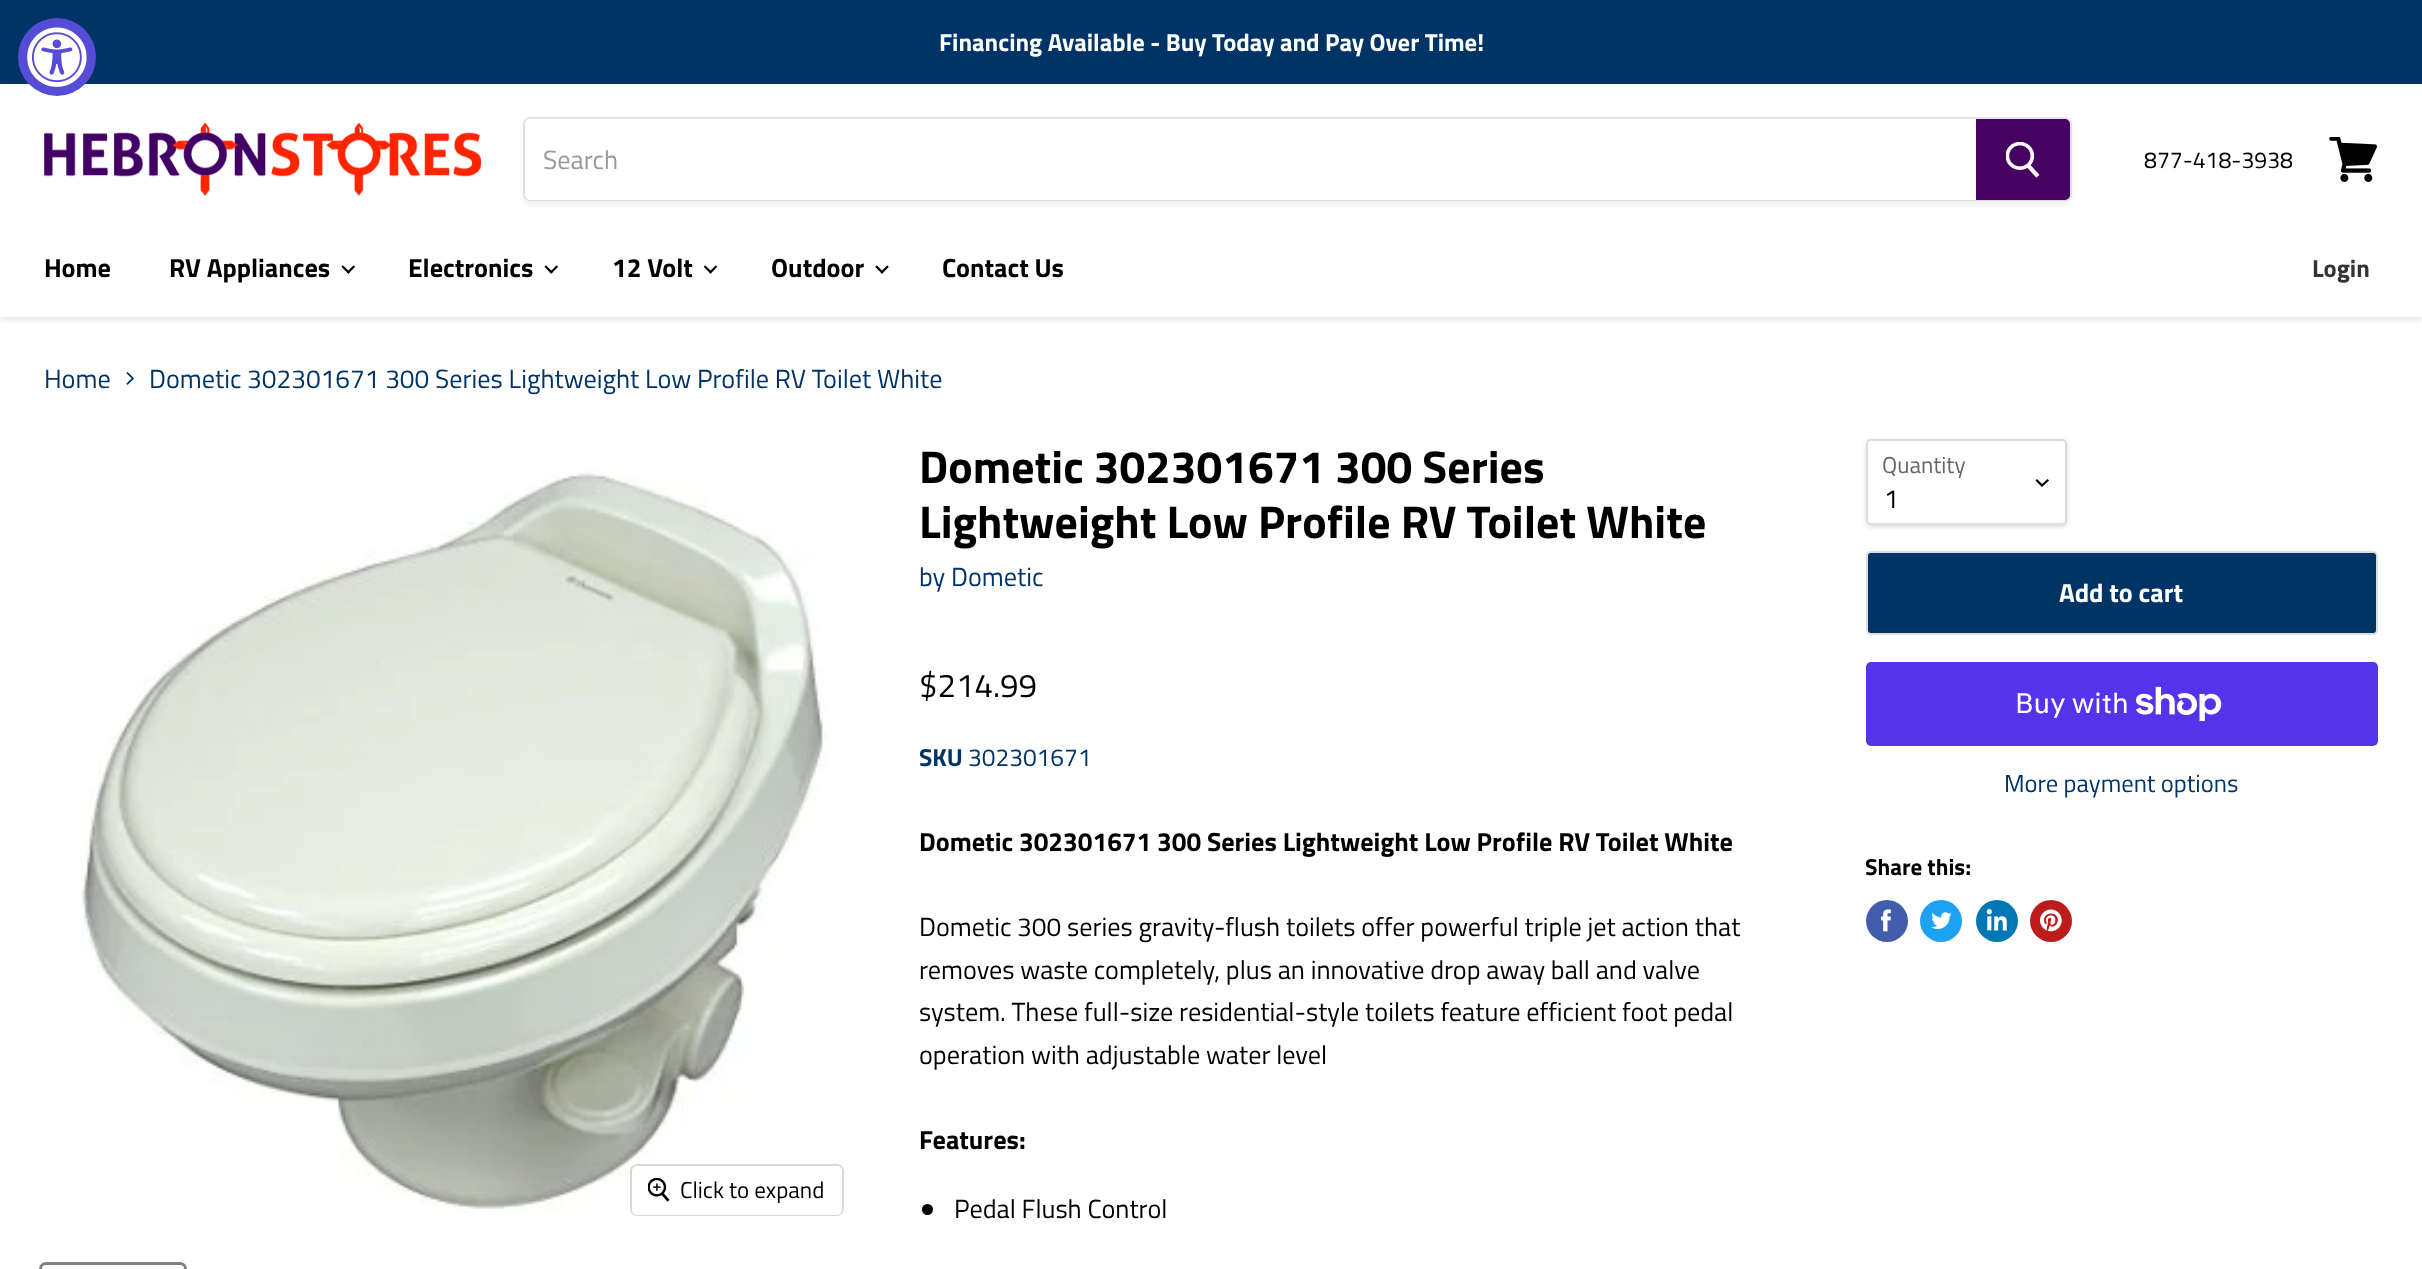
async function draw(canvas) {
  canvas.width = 2422
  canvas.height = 1269
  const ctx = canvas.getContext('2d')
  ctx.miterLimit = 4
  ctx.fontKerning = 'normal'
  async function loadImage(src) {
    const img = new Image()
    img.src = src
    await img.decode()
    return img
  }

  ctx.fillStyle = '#fff'
  ctx.fillRect(0, 0, 2422, 1269)
  ctx.fillStyle = '#036'
  ctx.fillRect(0, 0, 2422, 84)
  ctx.fillStyle = '#80808040'
  ctx.filter = 'blur(3.5px)'
  ctx.beginPath()
  ctx.rect(0, 86, 2422, 233)
  ctx.fill()
  ctx.filter = 'none'
  ctx.fillStyle = '#fff'
  ctx.fillRect(0, 84, 2422, 233)
  ctx.fillStyle = '#574cd5'
  ctx.beginPath()
  ctx.arc(57, 57, 39, 0, 2 * Math.PI)
  ctx.fill()
  ctx.drawImage(await loadImage('image0.png'), 27, 27, 60, 60)
  ctx.font = 'bold 24.6px Titillium Web'
  ctx.fillStyle = '#fff'
  ctx.fillText('Financing Available - Buy Today and Pay Over Time!', 939, 51)
  ctx.drawImage(await loadImage('image1.png'), 44, 123, 437, 74)
  ctx.fillStyle = '#8080801c'
  ctx.filter = 'blur(2.5px)'
  ctx.beginPath()
  ctx.roundRect(523, 121, 1549, 84, 7)
  ctx.fill()
  ctx.filter = 'none'
  ctx.beginPath()
  ctx.roundRect(524, 118, 1547, 82, 6)
  ctx.strokeStyle = '#80808033'
  ctx.lineWidth = 2
  ctx.stroke()
  ctx.fillStyle = '#fff'
  ctx.beginPath()
  ctx.roundRect(525, 119, 1451, 81, [5, 0, 0, 5])
  ctx.fill()
  ctx.font = '26.25px Titillium Web'
  ctx.fillStyle = '#999'
  ctx.fillText('Search', 543, 169)
  ctx.fillStyle = '#450263'
  ctx.beginPath()
  ctx.roundRect(1977, 120, 92, 79, [0, 4, 4, 0])
  ctx.fill()
  ctx.strokeStyle = '#450263'
  ctx.stroke()
  ctx.drawImage(await loadImage('image2.png'), 2006, 142, 34, 36)
  ctx.font = '23px Titillium Web'
  ctx.fillStyle = '#000'
  ctx.fillText('877-418-3938', 2144, 168)
  ctx.drawImage(await loadImage('image3.png'), 2329, 137, 48, 45)
  ctx.font = 'bold 26.25px Titillium Web'
  ctx.fillText('Home', 44, 277)
  ctx.fillText('RV Appliances', 169, 277)
  ctx.drawImage(await loadImage('image4.png'), 341, 265, 14, 9)
  ctx.fillText('Electronics', 408, 277)
  ctx.drawImage(await loadImage('image4.png'), 544, 265, 14, 9)
  ctx.fillText('12 Volt', 612, 277)
  ctx.drawImage(await loadImage('image5.png'), 704, 265, 14, 9)
  ctx.fillText('Outdoor', 771, 277)
  ctx.drawImage(await loadImage('image6.png'), 875, 265, 14, 9)
  ctx.fillText('Contact Us', 942, 277)
  ctx.font = 'bold 24.6px Titillium Web'
  ctx.fillStyle = '#333'
  ctx.fillText('Login', 2312, 277)
  ctx.font = '26.25px Titillium Web'
  ctx.fillStyle = '#036'
  ctx.fillText('Home', 44, 388)
  ctx.drawImage(await loadImage('image7.png'), 126, 372, 8, 13)
  ctx.fillText('Dometic 302301671 300 Series Lightweight Low Profile RV Toilet White', 149, 388)
  ctx.font = 'bold 45.9px Titillium Web'
  ctx.fillStyle = '#000'
  ctx.fillText('Dometic 302301671 300 Series', 919, 483)
  ctx.fillText('Lightweight Low Profile RV Toilet White', 919, 538)
  ctx.font = '26.25px Titillium Web'
  ctx.fillStyle = '#036'
  ctx.fillText('by Dometic', 919, 586)
  ctx.font = '33px Titillium Web'
  ctx.fillStyle = '#000'
  ctx.fillText('$214.99', 919, 697)
  ctx.font = 'bold 24.5px Titillium Web'
  ctx.fillStyle = '#036'
  ctx.fillText('SKU', 919, 766)
  ctx.font = '24.5px Titillium Web'
  ctx.fillText('302301671', 968, 766)
  ctx.font = 'bold 26.25px Titillium Web'
  ctx.fillStyle = '#000'
  ctx.fillText('Dometic 302301671 300 Series Lightweight Low Profile RV Toilet White', 919, 851)
  ctx.font = '26.25px Titillium Web'
  ctx.fillText('Dometic 300 series gravity-flush toilets offer powerful triple jet action that', 919, 936)
  ctx.fillText('removes waste completely, plus an innovative drop away ball and valve', 919, 979)
  ctx.fillText('system. These full-size residential-style toilets feature efficient foot pedal', 919, 1021)
  ctx.fillText('operation with adjustable water level', 919, 1064)
  ctx.font = 'bold 26.25px Titillium Web'
  ctx.fillText('Features:', 919, 1149)
  ctx.beginPath()
  ctx.arc(927.5, 1209.5, 5.5, 0, 2 * Math.PI)
  ctx.fill()
  ctx.font = '26.25px Titillium Web'
  ctx.fillText('Pedal Flush Control', 954, 1218)
  ctx.fillStyle = '#00000026'
  ctx.filter = 'blur(2px)'
  ctx.beginPath()
  ctx.roundRect(1866, 441, 201, 86, 5)
  ctx.fill()
  ctx.filter = 'none'
  ctx.fillStyle = '#fff'
  ctx.beginPath()
  ctx.roundRect(1867, 440, 199, 84, 4)
  ctx.fill()
  ctx.strokeStyle = '#ddd'
  ctx.stroke()
  ctx.font = '23px Titillium Web'
  ctx.fillStyle = '#666'
  ctx.fillText('Quantity', 1882, 473)
  ctx.beginPath()
  ctx.moveTo(2042, 485.5)
  ctx.lineTo(2047.5, 480.5)
  ctx.moveTo(2042, 485.5)
  ctx.lineTo(2037, 480.5)
  ctx.strokeStyle = '#000'
  ctx.lineWidth = 2.2
  ctx.lineCap = 'square'
  ctx.stroke()
  ctx.font = '26.25px Titillium Web'
  ctx.fillStyle = '#000'
  ctx.fillText('1', 1884, 508)
  ctx.fillStyle = '#036'
  ctx.beginPath()
  ctx.roundRect(1867, 552, 510, 82, 4)
  ctx.fill()
  ctx.strokeStyle = '#ddd'
  ctx.lineWidth = 2
  ctx.stroke()
  ctx.font = 'bold 26.25px Titillium Web'
  ctx.fillStyle = '#fff'
  ctx.fillText('Add to cart', 2059, 602)
  ctx.fillStyle = '#5433eb'
  ctx.beginPath()
  ctx.roundRect(1866, 662, 512, 84, 5)
  ctx.fill()
  ctx.font = '28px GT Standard'
  ctx.fillStyle = '#fff'
  ctx.fillText('Buy with', 2015, 713)
  ctx.drawImage(await loadImage('image8.png'), 2136, 686, 86, 35)
  ctx.font = '24.6px Titillium Web'
  ctx.fillStyle = '#036'
  ctx.fillText('More payment options', 2004, 792)
  ctx.font = 'bold 23px Titillium Web'
  ctx.fillStyle = '#000'
  ctx.fillText('Share this:', 1865, 875)
  ctx.fillStyle = '#425dab'
  ctx.beginPath()
  ctx.arc(1887, 921, 21, 0, 2 * Math.PI)
  ctx.fill()
  ctx.drawImage(await loadImage('image9.png'), 1881, 909, 10, 23)
  ctx.fillStyle = '#1da1f2'
  ctx.beginPath()
  ctx.arc(1941, 921, 21, 0, 2 * Math.PI)
  ctx.fill()
  ctx.drawImage(await loadImage('image10.png'), 1931, 912, 21, 17)
  ctx.fillStyle = '#0077b5'
  ctx.beginPath()
  ctx.arc(1997, 921, 21, 0, 2 * Math.PI)
  ctx.fill()
  ctx.drawImage(await loadImage('image11.png'), 1986, 909, 21, 22)
  ctx.fillStyle = '#bd1c1c'
  ctx.beginPath()
  ctx.arc(2051, 921, 21, 0, 2 * Math.PI)
  ctx.fill()
  ctx.drawImage(await loadImage('image12.png'), 2040, 909, 22, 23)
  ctx.drawImage(await loadImage('image13.png'), 81, 467, 746, 746)
  ctx.beginPath()
  ctx.roundRect(631, 1165, 212, 50, 6)
  ctx.strokeStyle = '#00000026'
  ctx.stroke()
  ctx.fillStyle = '#ffffffe6'
  ctx.beginPath()
  ctx.roundRect(632, 1166, 210, 49, 5)
  ctx.fill()
  ctx.drawImage(await loadImage('image14.png'), 648, 1178, 22, 24)
  ctx.font = '23px Titillium Web'
  ctx.fillStyle = '#000'
  ctx.fillText('Click to expand', 680, 1198)
  ctx.beginPath()
  ctx.roundRect(40.5, 1263.5, 145, 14, 5.5)
  ctx.strokeStyle = '#818181'
  ctx.lineWidth = 3
  ctx.stroke()
}

draw(document.querySelector('canvas'))
